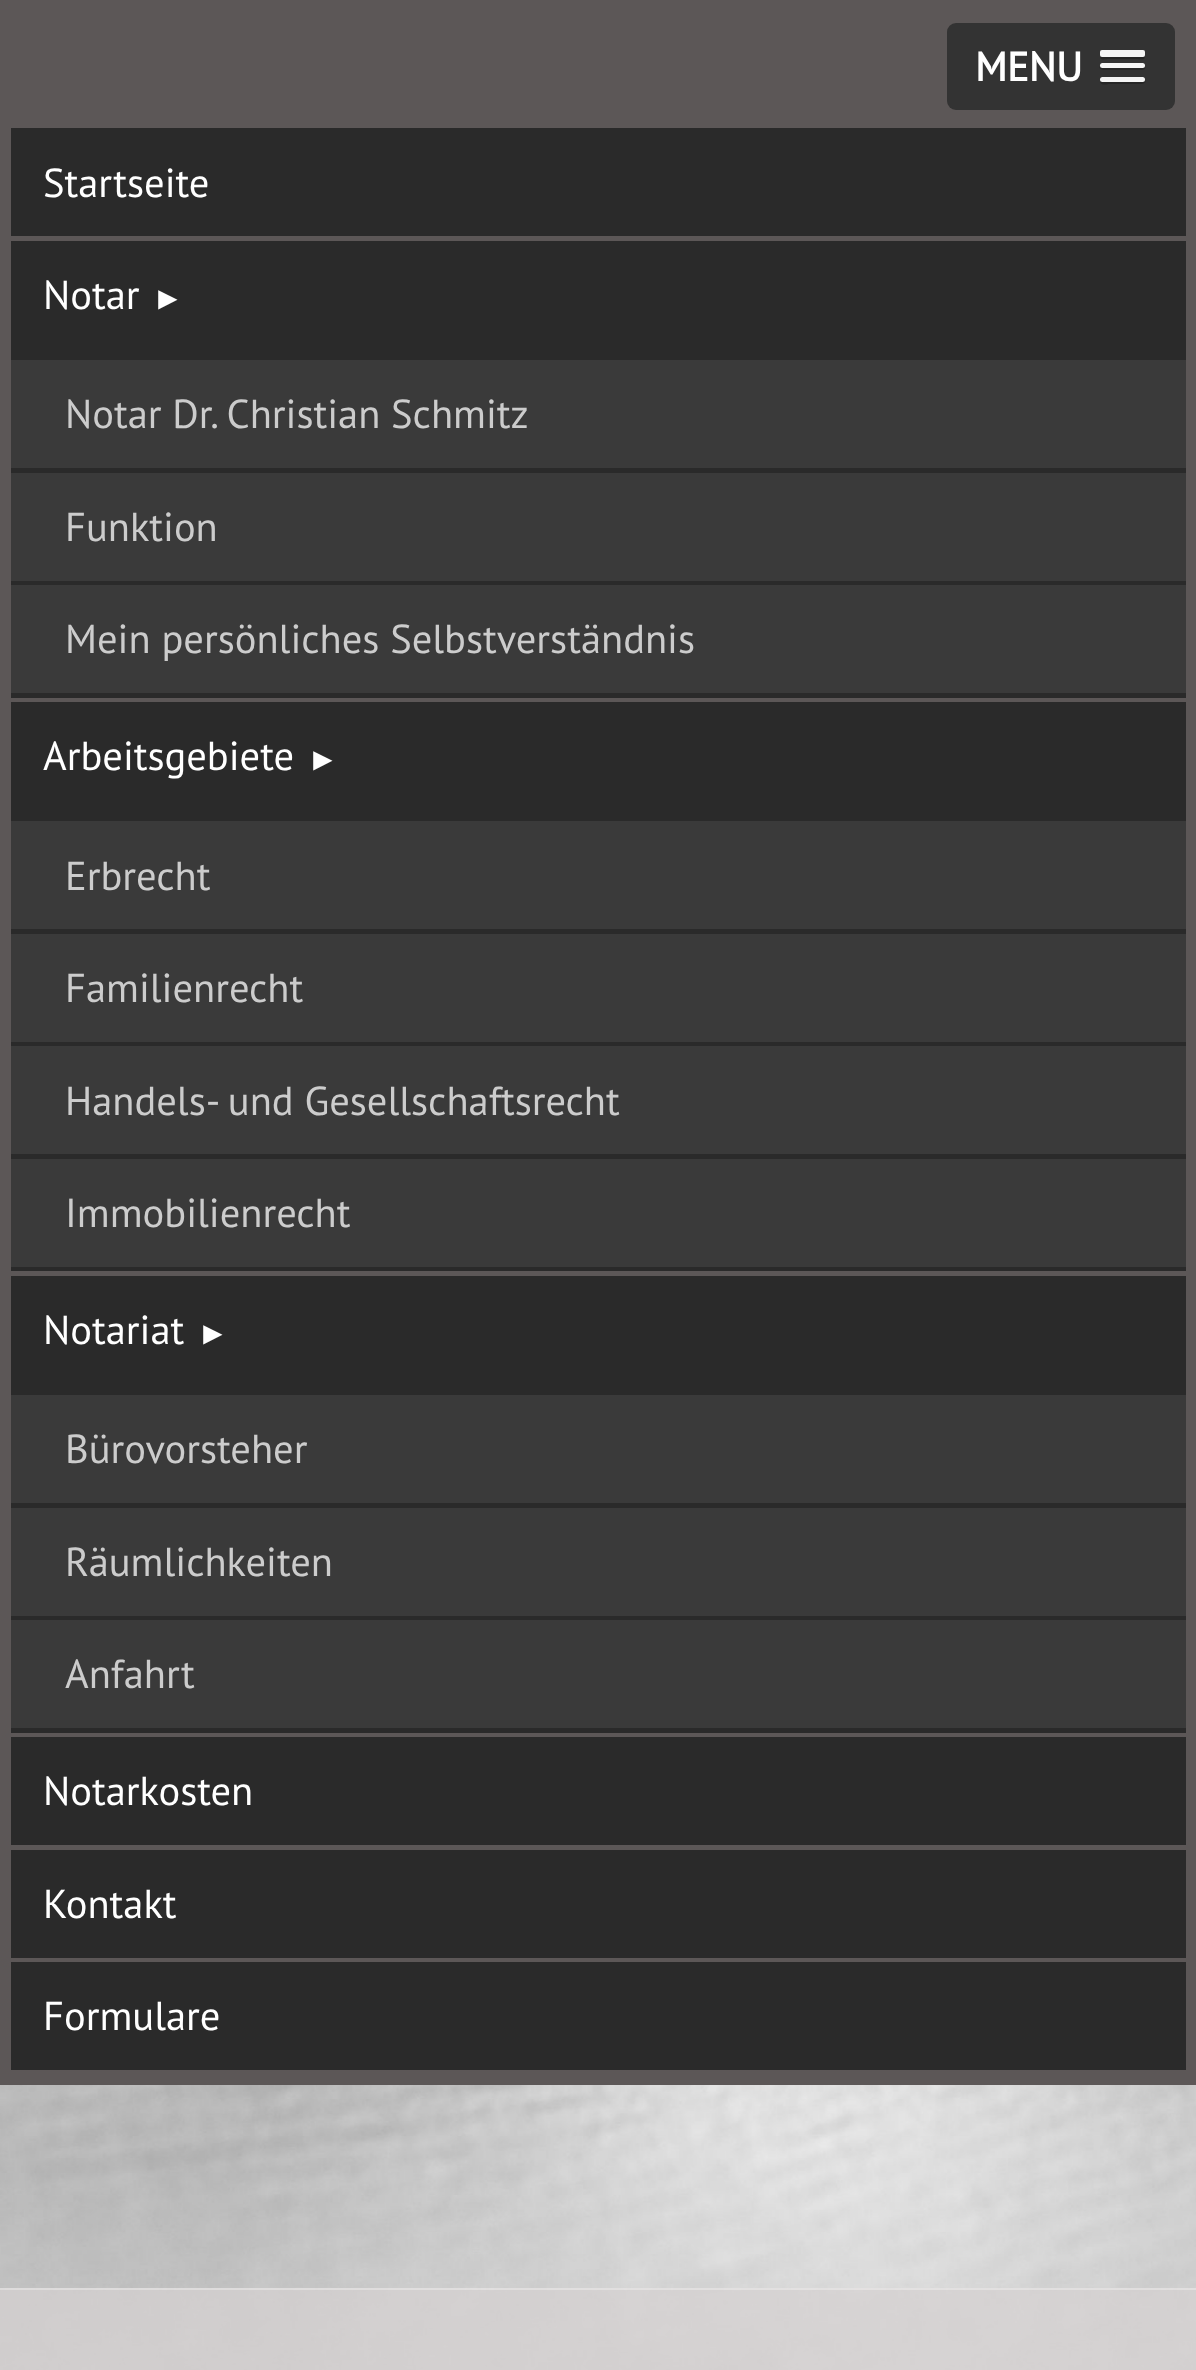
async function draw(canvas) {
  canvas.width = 1196
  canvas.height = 2370
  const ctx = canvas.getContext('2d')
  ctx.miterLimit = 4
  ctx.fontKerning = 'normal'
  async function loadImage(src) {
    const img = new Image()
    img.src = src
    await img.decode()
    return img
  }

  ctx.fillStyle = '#5c5757'
  ctx.fillRect(0, 0, 1196, 2370)
  ctx.fillStyle = '#333'
  ctx.beginPath()
  ctx.roundRect(947, 23, 228, 87, 9)
  ctx.fill()
  ctx.font = 'bold 40.5px PT Sans'
  ctx.fillStyle = '#fff'
  ctx.fillText('MENU', 975, 81)
  ctx.fillStyle = '#262626'
  ctx.beginPath()
  ctx.moveTo(1100, 53)
  ctx.lineTo(1100, 56)
  ctx.bezierCurveTo(1100, 61, 1104, 59, 1109, 59)
  ctx.lineTo(1136, 59)
  ctx.bezierCurveTo(1142, 59, 1145, 61, 1145, 55)
  ctx.bezierCurveTo(1145, 56, 1144, 56, 1143, 56)
  ctx.lineTo(1102, 56)
  ctx.bezierCurveTo(1101, 56, 1100, 55, 1100, 54)
  ctx.closePath()
  ctx.fill()
  ctx.fillStyle = '#f5f5f5'
  ctx.beginPath()
  ctx.roundRect(1100, 50, 45, 7, 2)
  ctx.fill()
  ctx.fillStyle = '#262626'
  ctx.beginPath()
  ctx.moveTo(1100, 66)
  ctx.bezierCurveTo(1097, 71, 1109, 70, 1109, 70)
  ctx.lineTo(1136, 70)
  ctx.bezierCurveTo(1137, 70, 1147, 71, 1145, 67)
  ctx.lineTo(1143, 68)
  ctx.lineTo(1102, 68)
  ctx.bezierCurveTo(1102, 68, 1101, 67, 1100, 66)
  ctx.closePath()
  ctx.fill()
  ctx.fillStyle = '#f5f5f5'
  ctx.beginPath()
  ctx.roundRect(1100, 63, 45, 5, 2.5)
  ctx.fill()
  ctx.fillStyle = '#262626'
  ctx.beginPath()
  ctx.moveTo(1101, 80)
  ctx.lineTo(1100, 82)
  ctx.bezierCurveTo(1101, 86, 1108, 84, 1109, 84)
  ctx.lineTo(1136, 84)
  ctx.bezierCurveTo(1136, 84, 1148, 85, 1145, 80)
  ctx.bezierCurveTo(1143, 82, 1114, 81, 1109, 81)
  ctx.bezierCurveTo(1109, 81, 1102, 82, 1101, 80)
  ctx.closePath()
  ctx.fill()
  ctx.fillStyle = '#f5f5f5'
  ctx.beginPath()
  ctx.roundRect(1100, 77, 45, 5, 2.5)
  ctx.fill()
  ctx.fillStyle = '#2a2a2a'
  ctx.fillRect(11, 128, 1175, 108)
  ctx.font = '40.5px PT Sans'
  ctx.fillStyle = '#fff'
  ctx.fillText('Startseite', 43, 197)
  ctx.fillStyle = '#2a2a2a'
  ctx.fillRect(11, 241, 1175, 457)
  ctx.fillStyle = '#fff'
  ctx.fillText('Notar', 43, 309)
  ctx.font = '32px Liberation Serif'
  ctx.fillText('►', 152, 309)
  ctx.fillStyle = '#3a3a3a'
  ctx.fillRect(11, 360, 1175, 108)
  ctx.font = '40.5px PT Sans'
  ctx.fillStyle = '#ccc'
  ctx.fillText('Notar Dr. Christian Schmitz', 65, 428)
  ctx.fillStyle = '#3a3a3a'
  ctx.fillRect(11, 473, 1175, 108)
  ctx.fillStyle = '#ccc'
  ctx.fillText('Funktion', 65, 541)
  ctx.fillStyle = '#3a3a3a'
  ctx.fillRect(11, 585, 1175, 108)
  ctx.fillStyle = '#ccc'
  ctx.fillText('Mein persönliches Selbstverständnis', 65, 653)
  ctx.fillStyle = '#2a2a2a'
  ctx.fillRect(11, 702, 1175, 569)
  ctx.fillStyle = '#fff'
  ctx.fillText('Arbeitsgebiete', 43, 770)
  ctx.font = '32px Liberation Serif'
  ctx.fillText('►', 307, 770)
  ctx.fillStyle = '#3a3a3a'
  ctx.fillRect(11, 821, 1175, 108)
  ctx.font = '40.5px PT Sans'
  ctx.fillStyle = '#ccc'
  ctx.fillText('Erbrecht', 65, 890)
  ctx.fillStyle = '#3a3a3a'
  ctx.fillRect(11, 934, 1175, 108)
  ctx.fillStyle = '#ccc'
  ctx.fillText('Familienrecht', 65, 1002)
  ctx.fillStyle = '#3a3a3a'
  ctx.fillRect(11, 1046, 1175, 108)
  ctx.fillStyle = '#ccc'
  ctx.fillText('Handels- und Gesellschaftsrecht', 65, 1115)
  ctx.fillStyle = '#3a3a3a'
  ctx.fillRect(11, 1159, 1175, 108)
  ctx.fillStyle = '#ccc'
  ctx.fillText('Immobilienrecht', 65, 1227)
  ctx.fillStyle = '#2a2a2a'
  ctx.fillRect(11, 1276, 1175, 457)
  ctx.fillStyle = '#fff'
  ctx.fillText('Notariat', 43, 1344)
  ctx.font = '32px Liberation Serif'
  ctx.fillText('►', 197, 1344)
  ctx.fillStyle = '#3a3a3a'
  ctx.fillRect(11, 1395, 1175, 108)
  ctx.font = '40.5px PT Sans'
  ctx.fillStyle = '#ccc'
  ctx.fillText('Bürovorsteher', 65, 1463)
  ctx.fillStyle = '#3a3a3a'
  ctx.fillRect(11, 1508, 1175, 108)
  ctx.fillStyle = '#ccc'
  ctx.fillText('Räumlichkeiten', 65, 1576)
  ctx.fillStyle = '#3a3a3a'
  ctx.fillRect(11, 1620, 1175, 108)
  ctx.fillStyle = '#ccc'
  ctx.fillText('Anfahrt', 65, 1688)
  ctx.fillStyle = '#2a2a2a'
  ctx.fillRect(11, 1737, 1175, 108)
  ctx.fillStyle = '#fff'
  ctx.fillText('Notarkosten', 43, 1805)
  ctx.fillStyle = '#2a2a2a'
  ctx.fillRect(11, 1850, 1175, 108)
  ctx.fillStyle = '#fff'
  ctx.fillText('Kontakt', 43, 1918)
  ctx.fillStyle = '#2a2a2a'
  ctx.fillRect(11, 1962, 1175, 108)
  ctx.fillStyle = '#fff'
  ctx.fillText('Formulare', 43, 2030)
  ctx.drawImage(await loadImage('image0.png'), 0, 2085, 1196, 285)
  ctx.fillStyle = '#d6d2d2b3'
  ctx.fillRect(0, 2288, 1196, 82)
  ctx.fillStyle = '#ffffff4d'
  ctx.fillRect(0, 2288, 1196, 2)
}

draw(document.querySelector('canvas'))
